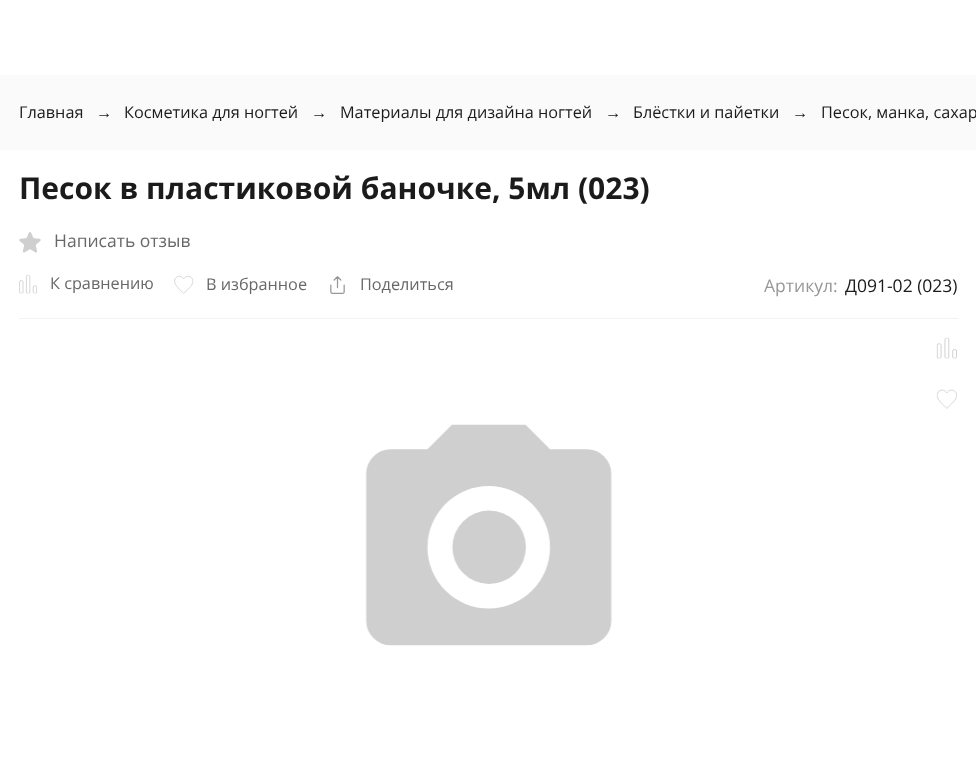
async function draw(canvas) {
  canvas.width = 976
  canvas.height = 777
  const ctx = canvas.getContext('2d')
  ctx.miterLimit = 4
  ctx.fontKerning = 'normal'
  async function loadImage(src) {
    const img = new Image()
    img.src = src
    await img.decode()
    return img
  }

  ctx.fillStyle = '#fff'
  ctx.fillRect(0, 0, 976, 777)
  ctx.fillStyle = '#fafafa'
  ctx.fillRect(0, 75, 976, 75)
  ctx.font = '16.25px Open Sans'
  ctx.fillStyle = '#1b1b1b'
  ctx.fillText('Главная', 19, 118)
  ctx.font = '16.25px Liberation Sans'
  ctx.fillText('→', 96, 118)
  ctx.font = '16.25px Open Sans'
  ctx.fillText('Косметика для ногтей', 124, 118)
  ctx.font = '16.25px Liberation Sans'
  ctx.fillText('→', 311, 118)
  ctx.font = '16.25px Open Sans'
  ctx.fillText('Материалы для дизайна ногтей', 340, 118)
  ctx.font = '16.25px Liberation Sans'
  ctx.fillText('→', 605, 118)
  ctx.font = '16.25px Open Sans'
  ctx.fillText('Блёстки и пайетки', 633, 118)
  ctx.font = '16.25px Liberation Sans'
  ctx.fillText('→', 792, 118)
  ctx.font = '16.25px Open Sans'
  ctx.fillText('Песок, манка, сахар', 821, 118)
  ctx.fillStyle = '#f2f2f2'
  ctx.fillRect(19, 318, 939, 1)
  ctx.font = 'bold 30px Open Sans'
  ctx.fillStyle = '#1b1b1b'
  ctx.fillText('Песок в пластиковой баночке, 5мл (023)', 19, 199)
  ctx.drawImage(await loadImage('image0.png'), 19, 232, 22, 21)
  ctx.font = '17.5px Open Sans'
  ctx.fillStyle = '#686868'
  ctx.fillText('Написать отзыв', 54, 247)
  ctx.drawImage(await loadImage('image1.png'), 19, 275, 18, 19)
  ctx.font = '16.25px Open Sans'
  ctx.fillText('К сравнению', 50, 289)
  ctx.drawImage(await loadImage('image2.png'), 174, 275, 20, 19)
  ctx.fillText('В избранное', 206, 290)
  ctx.drawImage(await loadImage('image3.png'), 330, 276, 15, 18)
  ctx.fillText('Поделиться', 360, 290)
  ctx.font = '17.5px Open Sans'
  ctx.fillStyle = '#979797'
  ctx.fillText('Артикул:', 764, 292)
  ctx.fillStyle = '#1b1b1b'
  ctx.fillText('Д091-02 (023)', 845, 292)
  ctx.drawImage(await loadImage('image4.png'), 936, 337, 21, 22)
  ctx.drawImage(await loadImage('image5.png'), 936, 389, 21, 20)
  ctx.drawImage(await loadImage('image6.png'), 365, 424, 247, 222)
}

draw(document.querySelector('canvas'))
